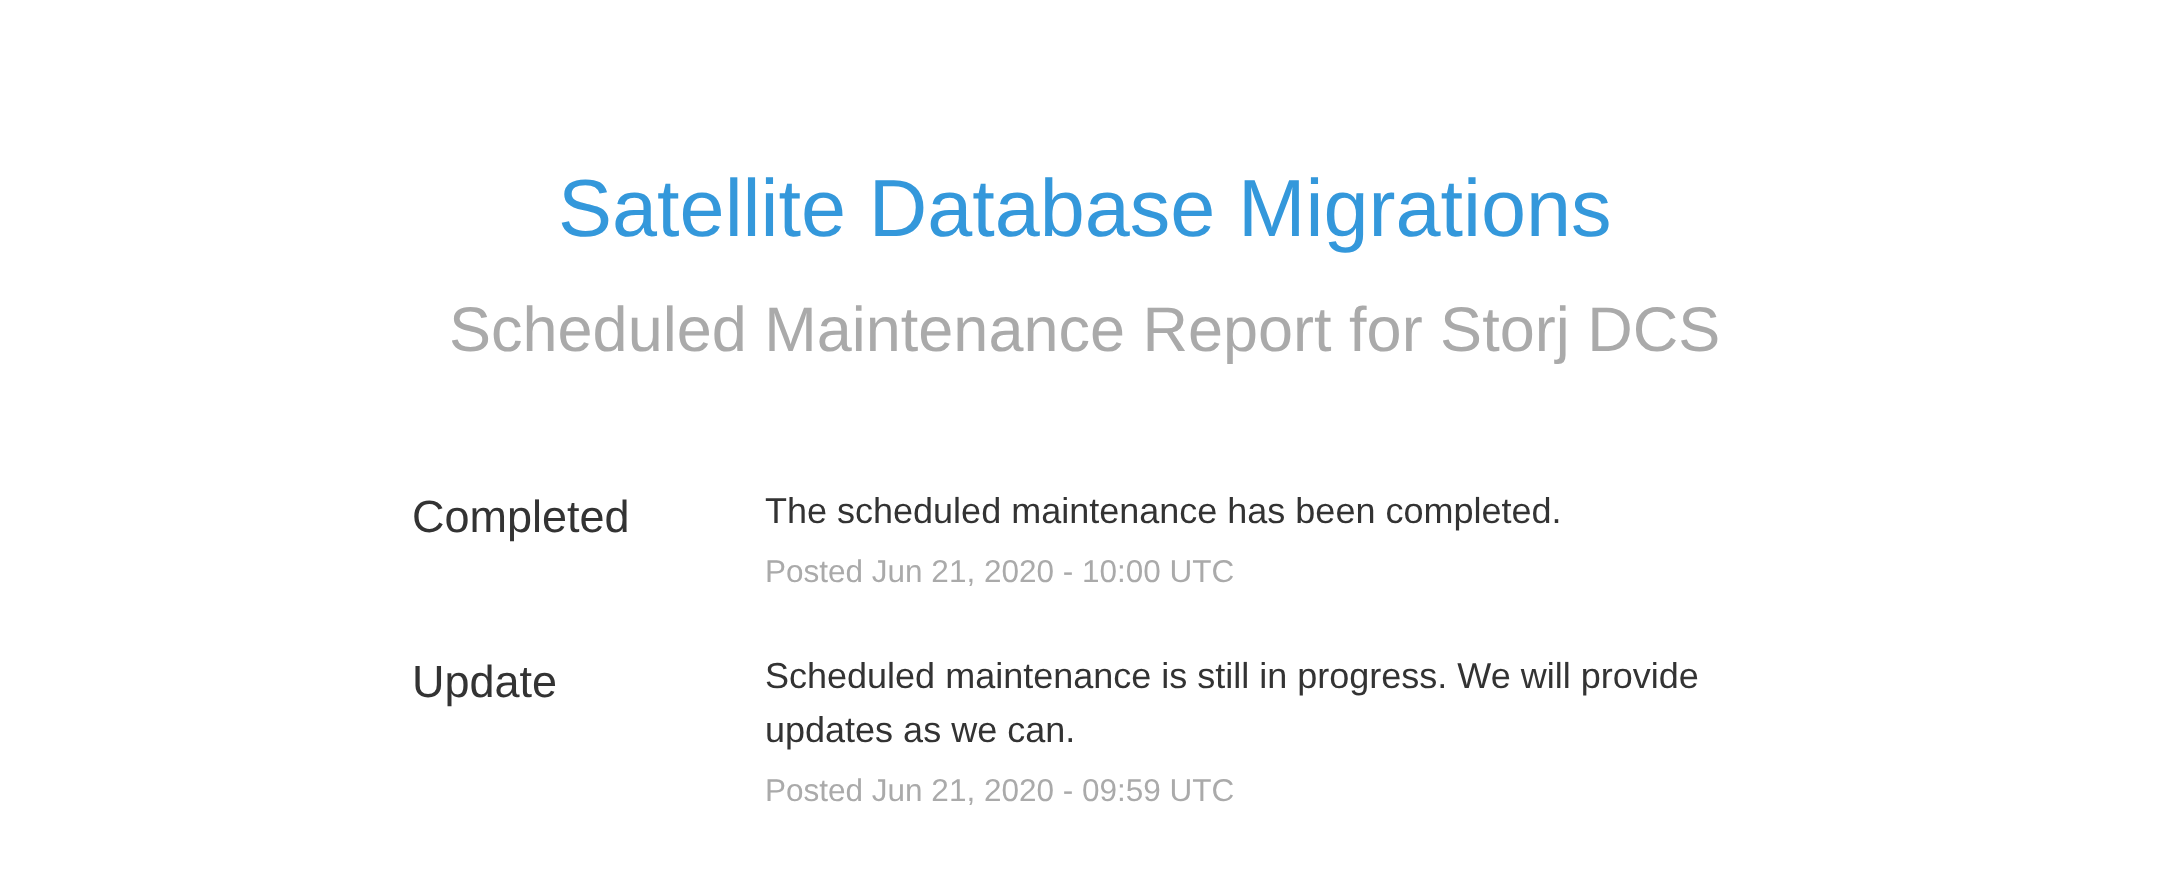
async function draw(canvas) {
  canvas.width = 2167
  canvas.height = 884
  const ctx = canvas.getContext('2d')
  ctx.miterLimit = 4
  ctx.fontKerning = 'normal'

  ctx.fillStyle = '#fff'
  ctx.fillRect(0, 0, 2167, 884)
  ctx.font = '81px Liberation Sans'
  ctx.fillStyle = '#3498db'
  ctx.fillText('Satellite Database Migrations', 558, 236)
  ctx.font = '63px Liberation Sans'
  ctx.fillStyle = '#aaa'
  ctx.fillText('Scheduled Maintenance Report for Storj DCS', 449, 351)
  ctx.font = '45px Liberation Sans'
  ctx.fillStyle = '#333'
  ctx.fillText('Completed', 412, 532)
  ctx.font = '36px Liberation Sans'
  ctx.fillText('The scheduled maintenance has been completed.', 765, 523)
  ctx.font = '31.5px Liberation Sans'
  ctx.fillStyle = '#aaa'
  ctx.fillText('Posted Jun 21, 2020 - 10:00 UTC', 765, 582)
  ctx.font = '45px Liberation Sans'
  ctx.fillStyle = '#333'
  ctx.fillText('Update', 412, 697)
  ctx.font = '36px Liberation Sans'
  ctx.fillText('Scheduled maintenance is still in progress. We will provide', 765, 688)
  ctx.fillText('updates as we can.', 765, 742)
  ctx.font = '31.5px Liberation Sans'
  ctx.fillStyle = '#aaa'
  ctx.fillText('Posted Jun 21, 2020 - 09:59 UTC', 765, 801)
}

draw(document.querySelector('canvas'))
